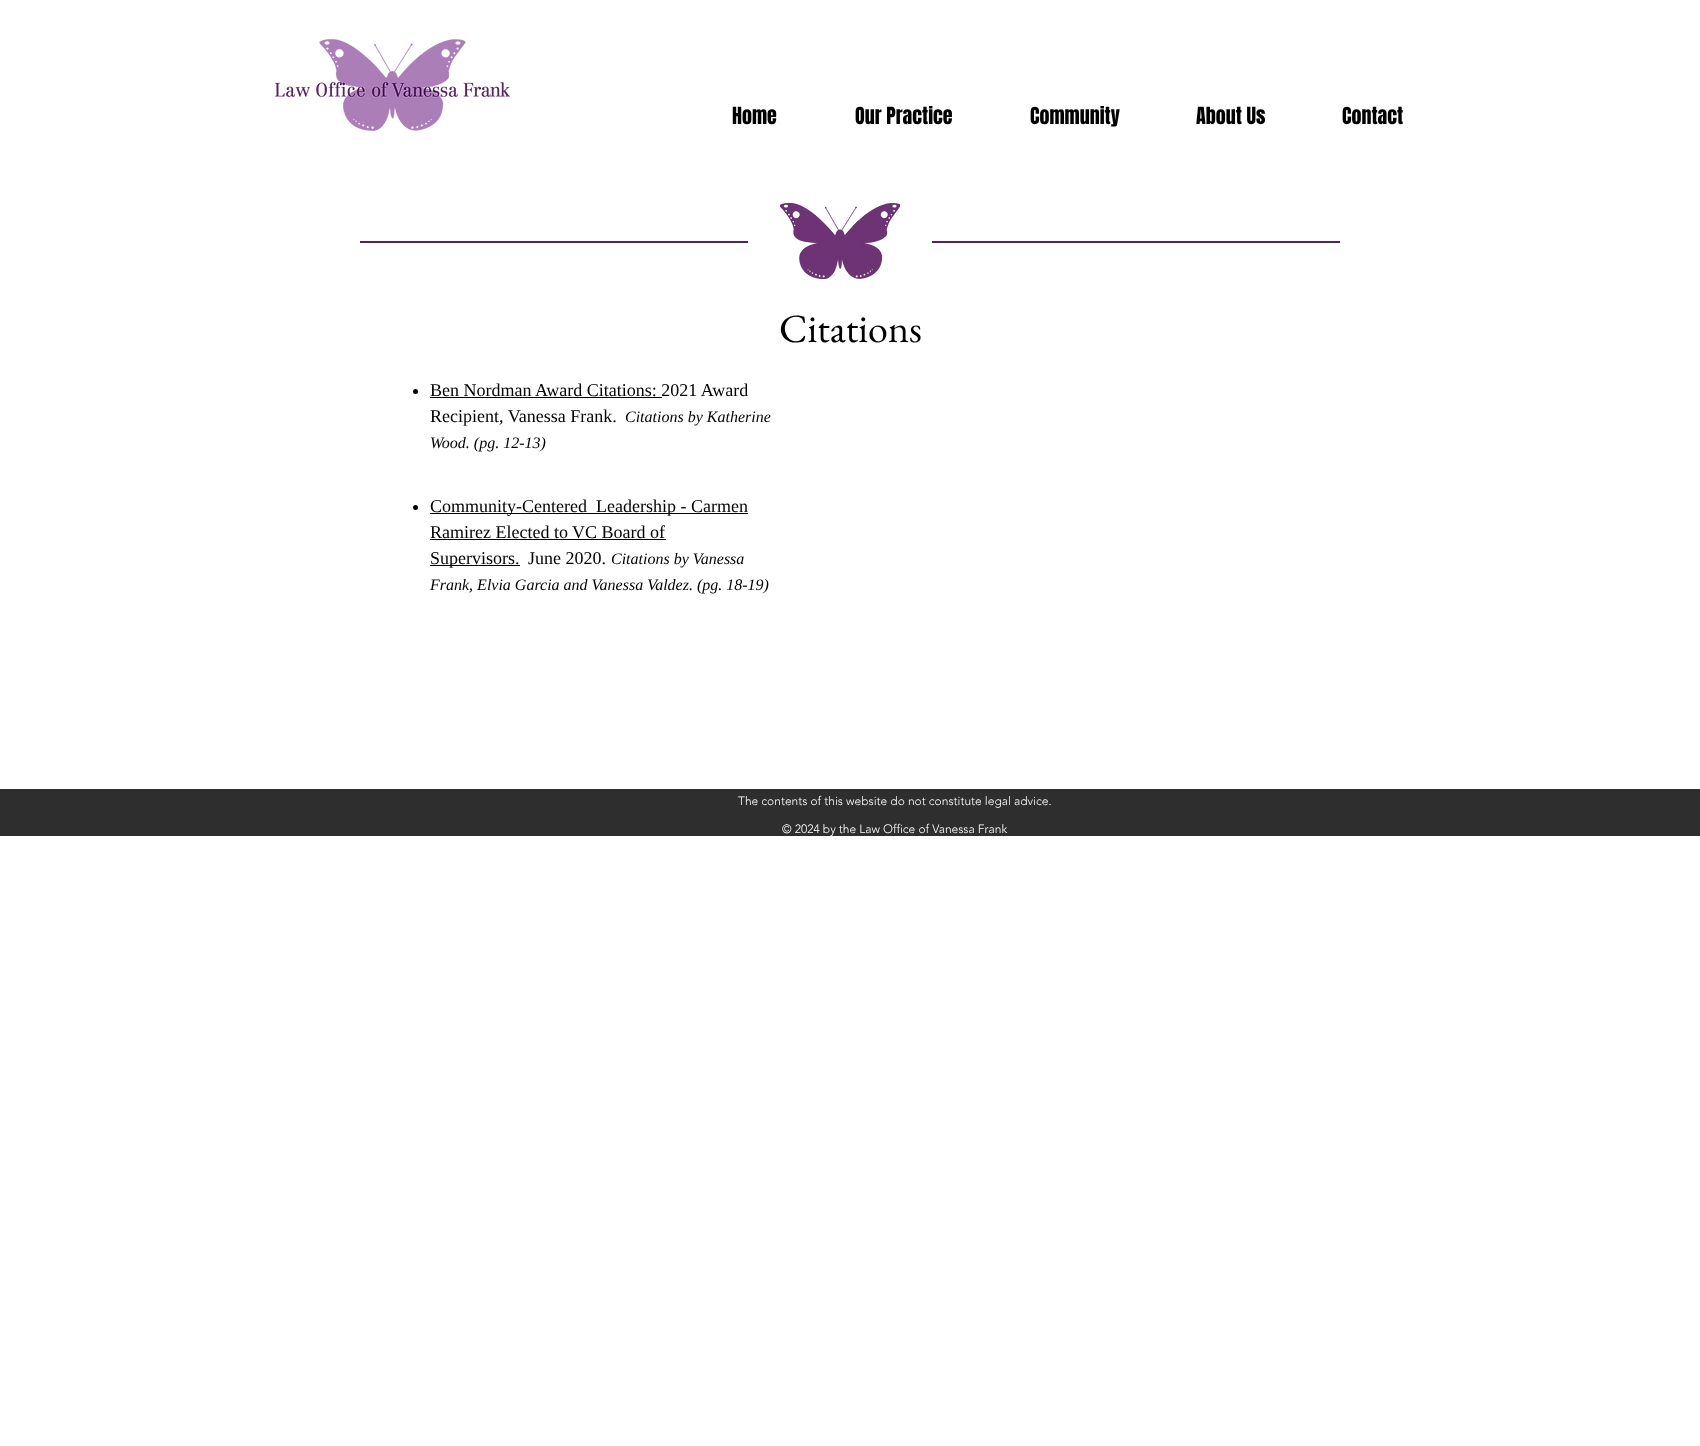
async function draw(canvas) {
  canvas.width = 1700
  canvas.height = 1446
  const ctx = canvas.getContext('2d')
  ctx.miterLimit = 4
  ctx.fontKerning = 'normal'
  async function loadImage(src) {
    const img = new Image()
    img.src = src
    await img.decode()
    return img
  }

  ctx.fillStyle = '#fff'
  ctx.fillRect(0, 0, 1700, 1446)
  ctx.drawImage(await loadImage('image0.png'), 274, 39, 237, 92)
  ctx.font = '20px Anton'
  ctx.fillStyle = '#000'
  ctx.fillText('Home', 732, 124)
  ctx.fillText('Our Practice', 855, 124)
  ctx.fillText('Community', 1030, 124)
  ctx.fillText('About Us', 1196, 124)
  ctx.fillText('Contact', 1342, 124)
  ctx.fillStyle = '#57205c'
  ctx.fillRect(360, 241, 388, 2)
  ctx.drawImage(await loadImage('image1.png'), 780, 203, 120, 76)
  ctx.fillRect(932, 241, 408, 2)
  ctx.font = '40px EB Garamond'
  ctx.fillStyle = '#000'
  ctx.fillText('Citations', 779, 342)
  ctx.beginPath()
  ctx.arc(415.5, 391.5, 2.5, 0, 2 * Math.PI)
  ctx.fill()
  ctx.font = '18px Liberation Serif'
  ctx.fillText('Ben Nordman Award Citations: 2021 Award', 430, 396)
  ctx.fillRect(430, 397, 232, 1)
  ctx.fillText('Recipient, Vanessa Frank.', 430, 422)
  ctx.font = 'italic 16px Liberation Serif'
  ctx.fillText('Citations by Katherine', 625, 422)
  ctx.fillText('Wood. (pg. 12-13)', 430, 448)
  ctx.beginPath()
  ctx.arc(415.5, 507.5, 2.5, 0, 2 * Math.PI)
  ctx.fill()
  ctx.fillRect(430, 513, 318, 1)
  ctx.font = '18px Liberation Serif'
  ctx.fillText('Community-Centered  Leadership - Carmen', 430, 512)
  ctx.fillText('Ramirez Elected to VC Board of', 430, 538)
  ctx.fillRect(430, 539, 236, 1)
  ctx.fillRect(430, 565, 90, 1)
  ctx.fillText('Supervisors.', 430, 564)
  ctx.fillText('June 2020.', 528, 564)
  ctx.font = 'italic 16px Liberation Serif'
  ctx.fillText('Citations by Vanessa', 611, 564)
  ctx.fillText('Frank, Elvia Garcia and Vanessa Valdez. (pg. 18-19)', 430, 590)
  ctx.fillStyle = '#2f2e2e'
  ctx.fillRect(0, 789, 1700, 47)
  ctx.font = '300 12px "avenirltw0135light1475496"'
  ctx.fillStyle = '#fff'
  ctx.fillText('The contents of this website do not constitute legal advice.', 738, 805)
  ctx.fillText('© 2024 by the Law Office of Vanessa Frank', 782, 833)
}

draw(document.querySelector('canvas'))
